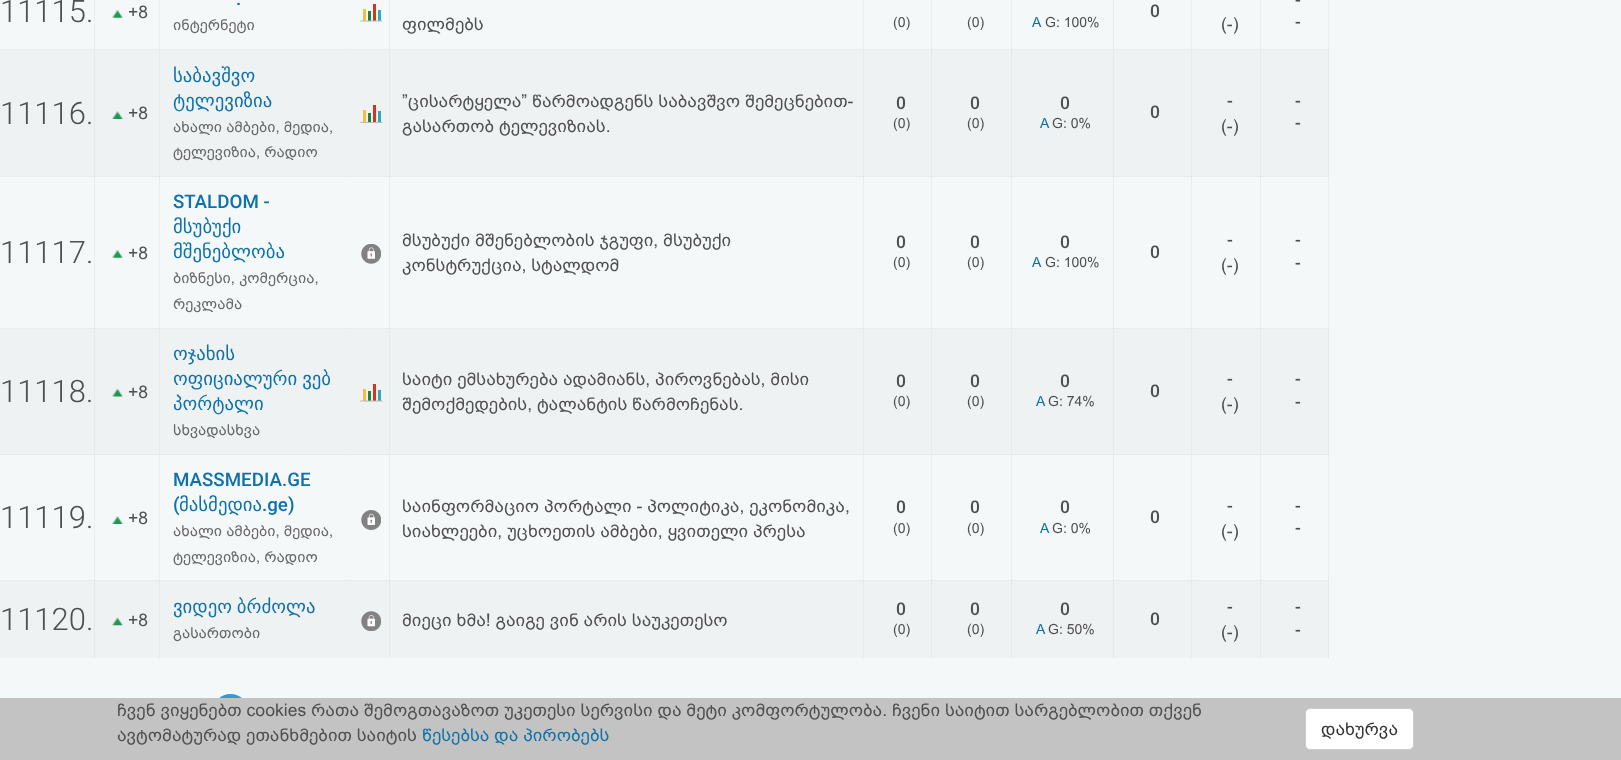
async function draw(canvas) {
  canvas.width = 1621
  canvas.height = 760
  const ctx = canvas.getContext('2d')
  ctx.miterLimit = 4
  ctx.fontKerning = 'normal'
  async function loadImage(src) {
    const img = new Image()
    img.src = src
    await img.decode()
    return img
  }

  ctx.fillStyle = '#f4f8f9'
  ctx.fillRect(0, 0, 1621, 760)
  ctx.fillStyle = '#ebeeee'
  ctx.fillRect(94, 0, 1, 50)
  ctx.fillRect(159, 0, 1, 50)
  ctx.fillRect(389, 0, 1, 50)
  ctx.fillRect(863, 0, 1, 50)
  ctx.fillRect(931, 0, 1, 50)
  ctx.fillRect(1011, 0, 1, 50)
  ctx.fillRect(1113, 0, 1, 50)
  ctx.fillRect(1191, 0, 1, 50)
  ctx.fillRect(1260, 0, 1, 50)
  ctx.fillRect(1328, 0, 1, 50)
  ctx.fillRect(0, 49, 1329, 1)
  ctx.fillStyle = '#e1e1e1'
  ctx.fillRect(94, 49, 1, 1)
  ctx.fillRect(159, 49, 1, 1)
  ctx.fillStyle = '#e6e8e8'
  ctx.fillRect(346, 49, 2, 1)
  ctx.fillStyle = '#e1e1e1'
  ctx.fillRect(389, 49, 1, 1)
  ctx.fillRect(863, 49, 1, 1)
  ctx.fillStyle = '#e6e8e8'
  ctx.fillRect(931, 49, 2, 1)
  ctx.fillStyle = '#e1e1e1'
  ctx.fillRect(931, 49, 1, 1)
  ctx.fillStyle = '#e6e8e8'
  ctx.fillRect(1011, 49, 2, 1)
  ctx.fillStyle = '#e1e1e1'
  ctx.fillRect(1011, 49, 1, 1)
  ctx.fillRect(1113, 49, 1, 1)
  ctx.fillStyle = '#e6e8e8'
  ctx.fillRect(1191, 49, 2, 1)
  ctx.fillStyle = '#e1e1e1'
  ctx.fillRect(1191, 49, 1, 1)
  ctx.fillStyle = '#ebeeee'
  ctx.fillRect(94, 176, 1, 153)
  ctx.fillStyle = '#e6e8e8'
  ctx.fillRect(94, 176, 1, 2)
  ctx.fillStyle = '#ebeeee'
  ctx.fillRect(0, 176, 95, 1)
  ctx.fillRect(159, 176, 1, 153)
  ctx.fillStyle = '#e6e8e8'
  ctx.fillRect(159, 176, 1, 2)
  ctx.fillStyle = '#ebeeee'
  ctx.fillRect(94, 176, 254, 1)
  ctx.fillStyle = '#e1e1e1'
  ctx.fillRect(94, 176, 1, 1)
  ctx.fillRect(159, 176, 1, 1)
  ctx.fillStyle = '#ebeeee'
  ctx.fillRect(389, 176, 1, 153)
  ctx.fillStyle = '#e6e8e8'
  ctx.fillRect(389, 176, 1, 2)
  ctx.fillStyle = '#ebeeee'
  ctx.fillRect(346, 176, 44, 1)
  ctx.fillStyle = '#e6e8e8'
  ctx.fillRect(346, 176, 2, 1)
  ctx.fillStyle = '#ebeeee'
  ctx.fillRect(863, 176, 1, 153)
  ctx.fillStyle = '#e6e8e8'
  ctx.fillRect(863, 176, 1, 2)
  ctx.fillStyle = '#ebeeee'
  ctx.fillRect(389, 176, 475, 1)
  ctx.fillStyle = '#e1e1e1'
  ctx.fillRect(389, 176, 1, 1)
  ctx.fillStyle = '#ebeeee'
  ctx.fillRect(931, 176, 1, 153)
  ctx.fillStyle = '#e6e8e8'
  ctx.fillRect(931, 176, 1, 2)
  ctx.fillStyle = '#ebeeee'
  ctx.fillRect(863, 176, 70, 1)
  ctx.fillStyle = '#e1e1e1'
  ctx.fillRect(863, 176, 1, 1)
  ctx.fillStyle = '#ebeeee'
  ctx.fillRect(1011, 176, 1, 153)
  ctx.fillStyle = '#e6e8e8'
  ctx.fillRect(1011, 176, 1, 2)
  ctx.fillStyle = '#ebeeee'
  ctx.fillRect(931, 176, 82, 1)
  ctx.fillStyle = '#e6e8e8'
  ctx.fillRect(931, 176, 2, 1)
  ctx.fillStyle = '#e1e1e1'
  ctx.fillRect(931, 176, 1, 1)
  ctx.fillStyle = '#ebeeee'
  ctx.fillRect(1113, 176, 1, 153)
  ctx.fillStyle = '#e6e8e8'
  ctx.fillRect(1113, 176, 1, 2)
  ctx.fillStyle = '#ebeeee'
  ctx.fillRect(1011, 176, 103, 1)
  ctx.fillStyle = '#e6e8e8'
  ctx.fillRect(1011, 176, 2, 1)
  ctx.fillStyle = '#e1e1e1'
  ctx.fillRect(1011, 176, 1, 1)
  ctx.fillStyle = '#ebeeee'
  ctx.fillRect(1191, 176, 1, 153)
  ctx.fillStyle = '#e6e8e8'
  ctx.fillRect(1191, 176, 1, 2)
  ctx.fillStyle = '#ebeeee'
  ctx.fillRect(1113, 176, 80, 1)
  ctx.fillStyle = '#e1e1e1'
  ctx.fillRect(1113, 176, 1, 1)
  ctx.fillStyle = '#ebeeee'
  ctx.fillRect(1260, 176, 1, 153)
  ctx.fillStyle = '#e6e8e8'
  ctx.fillRect(1260, 176, 1, 2)
  ctx.fillStyle = '#ebeeee'
  ctx.fillRect(1191, 176, 70, 1)
  ctx.fillStyle = '#e6e8e8'
  ctx.fillRect(1191, 176, 2, 1)
  ctx.fillStyle = '#e1e1e1'
  ctx.fillRect(1191, 176, 1, 1)
  ctx.fillStyle = '#ebeeee'
  ctx.fillRect(1328, 176, 1, 153)
  ctx.fillStyle = '#e6e8e8'
  ctx.fillRect(1328, 176, 1, 2)
  ctx.fillStyle = '#ebeeee'
  ctx.fillRect(0, 328, 1329, 1)
  ctx.fillStyle = '#e1e1e1'
  ctx.fillRect(94, 328, 1, 1)
  ctx.fillRect(159, 328, 1, 1)
  ctx.fillStyle = '#e6e8e8'
  ctx.fillRect(346, 328, 2, 1)
  ctx.fillStyle = '#e1e1e1'
  ctx.fillRect(389, 328, 1, 1)
  ctx.fillRect(863, 328, 1, 1)
  ctx.fillStyle = '#e6e8e8'
  ctx.fillRect(931, 328, 2, 1)
  ctx.fillStyle = '#e1e1e1'
  ctx.fillRect(931, 328, 1, 1)
  ctx.fillStyle = '#e6e8e8'
  ctx.fillRect(1011, 328, 2, 1)
  ctx.fillStyle = '#e1e1e1'
  ctx.fillRect(1011, 328, 1, 1)
  ctx.fillRect(1113, 328, 1, 1)
  ctx.fillStyle = '#e6e8e8'
  ctx.fillRect(1191, 328, 2, 1)
  ctx.fillStyle = '#e1e1e1'
  ctx.fillRect(1191, 328, 1, 1)
  ctx.fillStyle = '#ebeeee'
  ctx.fillRect(94, 454, 1, 127)
  ctx.fillRect(159, 454, 1, 127)
  ctx.fillRect(389, 454, 1, 127)
  ctx.fillRect(863, 454, 1, 127)
  ctx.fillRect(931, 454, 1, 127)
  ctx.fillRect(1011, 454, 1, 127)
  ctx.fillRect(1113, 454, 1, 127)
  ctx.fillRect(1191, 454, 1, 127)
  ctx.fillRect(1260, 454, 1, 127)
  ctx.fillRect(1328, 454, 1, 127)
  ctx.fillRect(0, 580, 1329, 1)
  ctx.fillStyle = '#e1e1e1'
  ctx.fillRect(94, 580, 1, 1)
  ctx.fillRect(159, 580, 1, 1)
  ctx.fillStyle = '#e6e8e8'
  ctx.fillRect(346, 580, 2, 1)
  ctx.fillStyle = '#e1e1e1'
  ctx.fillRect(389, 580, 1, 1)
  ctx.fillRect(863, 580, 1, 1)
  ctx.fillStyle = '#e6e8e8'
  ctx.fillRect(931, 580, 2, 1)
  ctx.fillStyle = '#e1e1e1'
  ctx.fillRect(931, 580, 1, 1)
  ctx.fillStyle = '#e6e8e8'
  ctx.fillRect(1011, 580, 2, 1)
  ctx.fillStyle = '#e1e1e1'
  ctx.fillRect(1011, 580, 1, 1)
  ctx.fillRect(1113, 580, 1, 1)
  ctx.fillStyle = '#e6e8e8'
  ctx.fillRect(1191, 580, 2, 1)
  ctx.fillStyle = '#e1e1e1'
  ctx.fillRect(1191, 580, 1, 1)
  ctx.font = '300 31px Roboto'
  ctx.fillStyle = '#4f4f4f'
  ctx.fillText('11115.', 0, 22)
  ctx.drawImage(await loadImage('image0.png'), 112, 10, 11, 8)
  ctx.font = '17.5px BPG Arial'
  ctx.fillText('+8', 128, 18)
  ctx.font = '500 18.75px Roboto'
  ctx.fillStyle = '#0e71a9'
  ctx.fillText('.', 236, 5)
  ctx.font = '15px BPG Arial'
  ctx.fillStyle = '#666'
  ctx.fillText('ინტერნეტი', 173, 30)
  ctx.fillStyle = '#f5be40'
  ctx.fillRect(363, 9, 3, 12)
  ctx.fillStyle = '#248139'
  ctx.fillRect(368, 11, 3, 10)
  ctx.fillStyle = '#cf3722'
  ctx.fillRect(373, 4, 3, 17)
  ctx.fillStyle = '#32a9b8'
  ctx.fillRect(378, 10, 3, 11)
  ctx.beginPath()
  ctx.moveTo(360.5, 21)
  ctx.lineTo(382, 21)
  ctx.strokeStyle = '#bababa'
  ctx.lineWidth = 1.2
  ctx.lineCap = 'round'
  ctx.lineJoin = 'round'
  ctx.stroke()
  ctx.font = '500 17.5px Roboto'
  ctx.fillStyle = '#4f4f4f'
  ctx.fillText('0', 1150, 17)
  ctx.fillText('-', 1295, 6)
  ctx.fillText('-', 1295, 28)
  ctx.font = '17.5px BPG Arial'
  ctx.fillText('ფილმებს', 402, 30)
  ctx.font = '14px BPG Arial'
  ctx.fillText('(0)', 893, 27)
  ctx.fillText('(0)', 967, 27)
  ctx.fillStyle = '#0e71a9'
  ctx.fillText('A', 1032, 27)
  ctx.fillStyle = '#4f4f4f'
  ctx.fillText('G: 100%', 1045, 27)
  ctx.font = '17.5px BPG Arial'
  ctx.fillText('(-)', 1221, 30)
  ctx.fillStyle = '#eef2f2'
  ctx.fillRect(0, 50, 1328, 126)
  ctx.fillStyle = '#e8eaea'
  ctx.fillRect(94, 50, 1, 126)
  ctx.fillRect(159, 50, 1, 126)
  ctx.fillRect(389, 50, 1, 126)
  ctx.fillRect(863, 50, 1, 126)
  ctx.fillRect(931, 50, 1, 126)
  ctx.fillRect(1011, 50, 1, 126)
  ctx.fillRect(1113, 50, 1, 126)
  ctx.fillRect(1191, 50, 1, 126)
  ctx.fillRect(1260, 50, 1, 126)
  ctx.fillRect(1328, 50, 1, 126)
  ctx.font = '300 31px Roboto'
  ctx.fillStyle = '#4f4f4f'
  ctx.fillText('11116.', 0, 124)
  ctx.drawImage(await loadImage('image1.png'), 112, 111, 11, 8)
  ctx.font = '17.5px BPG Arial'
  ctx.fillText('+8', 128, 119)
  ctx.font = '18.75px DejaVu Sans'
  ctx.fillStyle = '#0e71a9'
  ctx.fillText('საბავშვო', 173, 82)
  ctx.fillText('ტელევიზია', 173, 107)
  ctx.font = '15px BPG Arial'
  ctx.fillStyle = '#666'
  ctx.fillText('ახალი ამბები, მედია,', 173, 132)
  ctx.fillText('ტელევიზია, რადიო', 173, 157)
  ctx.fillStyle = '#f5be40'
  ctx.fillRect(363, 110, 3, 13)
  ctx.fillStyle = '#248139'
  ctx.fillRect(368, 113, 3, 10)
  ctx.fillStyle = '#cf3722'
  ctx.fillRect(373, 105, 3, 18)
  ctx.fillStyle = '#32a9b8'
  ctx.fillRect(378, 111, 3, 12)
  ctx.beginPath()
  ctx.moveTo(360.5, 122.5)
  ctx.lineTo(382, 122.5)
  ctx.stroke()
  ctx.font = '17.5px BPG Arial'
  ctx.fillStyle = '#4f4f4f'
  ctx.fillText('”ცისარტყელა” წარმოადგენს საბავშვო შემეცნებით-', 402, 107)
  ctx.fillText('გასართობ ტელევიზიას.', 402, 132)
  ctx.font = '500 17.5px Roboto'
  ctx.fillText('0', 896, 109)
  ctx.font = '14px BPG Arial'
  ctx.fillText('(0)', 893, 128)
  ctx.font = '500 17.5px Roboto'
  ctx.fillText('0', 970, 109)
  ctx.font = '14px BPG Arial'
  ctx.fillText('(0)', 967, 128)
  ctx.font = '500 17.5px Roboto'
  ctx.fillText('0', 1060, 109)
  ctx.font = '14px BPG Arial'
  ctx.fillStyle = '#0e71a9'
  ctx.fillText('A', 1040, 128)
  ctx.fillStyle = '#4f4f4f'
  ctx.fillText('G: 0%', 1052, 128)
  ctx.font = '500 17.5px Roboto'
  ctx.fillText('0', 1150, 118)
  ctx.fillText('-', 1227, 107)
  ctx.font = '17.5px BPG Arial'
  ctx.fillText('(-)', 1221, 132)
  ctx.fillStyle = '#e1e1e1'
  ctx.fillRect(1260, 49, 1, 1)
  ctx.fillStyle = '#e3e4e4'
  ctx.fillRect(1328, 49, 1, 1)
  ctx.font = '500 17.5px Roboto'
  ctx.fillStyle = '#4f4f4f'
  ctx.fillText('-', 1295, 107)
  ctx.fillText('-', 1295, 129)
  ctx.font = '300 31px Roboto'
  ctx.fillText('11117.', 0, 263)
  ctx.drawImage(await loadImage('image0.png'), 112, 250, 11, 8)
  ctx.font = '17.5px BPG Arial'
  ctx.fillText('+8', 128, 259)
  ctx.font = '500 18.75px Roboto'
  ctx.fillStyle = '#0e71a9'
  ctx.fillText('STALDOM -', 173, 208)
  ctx.font = '18.75px DejaVu Sans'
  ctx.fillText('მსუბუქი', 173, 233)
  ctx.fillText('მშენებლობა', 173, 258)
  ctx.font = '15px BPG Arial'
  ctx.fillStyle = '#666'
  ctx.fillText('ბიზნესი, კომერცია,', 173, 283)
  ctx.fillText('რეკლამა', 173, 309)
  ctx.drawImage(await loadImage('image2.png'), 361, 244, 20, 20)
  ctx.font = '17.5px BPG Arial'
  ctx.fillStyle = '#4f4f4f'
  ctx.fillText('მსუბუქი მშენებლობის ჯგუფი, მსუბუქი', 402, 246)
  ctx.fillText('კონსტრუქცია, სტალდომ', 402, 271)
  ctx.font = '500 17.5px Roboto'
  ctx.fillText('0', 896, 248)
  ctx.font = '14px BPG Arial'
  ctx.fillText('(0)', 893, 267)
  ctx.font = '500 17.5px Roboto'
  ctx.fillText('0', 970, 248)
  ctx.font = '14px BPG Arial'
  ctx.fillText('(0)', 967, 267)
  ctx.font = '500 17.5px Roboto'
  ctx.fillText('0', 1060, 248)
  ctx.font = '14px BPG Arial'
  ctx.fillStyle = '#0e71a9'
  ctx.fillText('A', 1032, 267)
  ctx.fillStyle = '#4f4f4f'
  ctx.fillText('G: 100%', 1045, 267)
  ctx.font = '500 17.5px Roboto'
  ctx.fillText('0', 1150, 258)
  ctx.fillText('-', 1227, 246)
  ctx.font = '17.5px BPG Arial'
  ctx.fillText('(-)', 1221, 271)
  ctx.fillStyle = '#ebeeee'
  ctx.fillRect(1260, 176, 69, 1)
  ctx.fillStyle = '#e1e1e1'
  ctx.fillRect(1260, 176, 1, 1)
  ctx.fillStyle = '#e3e4e4'
  ctx.fillRect(1328, 176, 1, 1)
  ctx.font = '500 17.5px Roboto'
  ctx.fillStyle = '#4f4f4f'
  ctx.fillText('-', 1295, 246)
  ctx.fillText('-', 1295, 269)
  ctx.fillStyle = '#eef2f2'
  ctx.fillRect(0, 329, 1328, 125)
  ctx.fillStyle = '#e8eaea'
  ctx.fillRect(94, 329, 1, 126)
  ctx.fillRect(159, 329, 1, 126)
  ctx.fillRect(389, 329, 1, 126)
  ctx.fillRect(863, 329, 1, 126)
  ctx.fillRect(931, 329, 1, 126)
  ctx.fillRect(1011, 329, 1, 126)
  ctx.fillRect(1113, 329, 1, 126)
  ctx.fillRect(1191, 329, 1, 126)
  ctx.fillRect(1260, 329, 1, 126)
  ctx.fillRect(1328, 329, 1, 126)
  ctx.fillRect(0, 454, 1329, 1)
  ctx.fillStyle = '#dfe0e0'
  ctx.fillRect(94, 454, 1, 1)
  ctx.fillRect(159, 454, 1, 1)
  ctx.fillStyle = '#e4e5e5'
  ctx.fillRect(346, 454, 2, 1)
  ctx.fillStyle = '#dfe0e0'
  ctx.fillRect(389, 454, 1, 1)
  ctx.fillRect(863, 454, 1, 1)
  ctx.fillStyle = '#e4e5e5'
  ctx.fillRect(931, 454, 2, 1)
  ctx.fillStyle = '#dfe0e0'
  ctx.fillRect(931, 454, 1, 1)
  ctx.fillStyle = '#e4e5e5'
  ctx.fillRect(1011, 454, 2, 1)
  ctx.fillStyle = '#dfe0e0'
  ctx.fillRect(1011, 454, 1, 1)
  ctx.fillRect(1113, 454, 1, 1)
  ctx.fillStyle = '#e4e5e5'
  ctx.fillRect(1191, 454, 2, 1)
  ctx.fillStyle = '#dfe0e0'
  ctx.fillRect(1191, 454, 1, 1)
  ctx.font = '300 31px Roboto'
  ctx.fillStyle = '#4f4f4f'
  ctx.fillText('11118.', 0, 402)
  ctx.drawImage(await loadImage('image3.png'), 112, 389, 11, 8)
  ctx.font = '17.5px BPG Arial'
  ctx.fillText('+8', 128, 398)
  ctx.font = '18.75px DejaVu Sans'
  ctx.fillStyle = '#0e71a9'
  ctx.fillText('ოჯახის', 173, 360)
  ctx.wordSpacing = '-1px'
  ctx.fillText('ოფიციალური ვებ', 173, 385)
  ctx.wordSpacing = '0px'
  ctx.fillText('პორტალი', 173, 410)
  ctx.font = '15px BPG Arial'
  ctx.fillStyle = '#666'
  ctx.fillText('სხვადასხვა', 173, 435)
  ctx.fillStyle = '#f5be40'
  ctx.fillRect(363, 389, 3, 12)
  ctx.fillStyle = '#248139'
  ctx.fillRect(368, 391, 3, 10)
  ctx.fillStyle = '#cf3722'
  ctx.fillRect(373, 384, 3, 17)
  ctx.fillStyle = '#32a9b8'
  ctx.fillRect(378, 390, 3, 11)
  ctx.beginPath()
  ctx.moveTo(360.5, 401)
  ctx.lineTo(382, 401)
  ctx.stroke()
  ctx.font = '17.5px BPG Arial'
  ctx.fillStyle = '#4f4f4f'
  ctx.fillText('საიტი ემსახურება ადამიანს, პიროვნებას, მისი', 402, 385)
  ctx.fillText('შემოქმედების, ტალანტის წარმოჩენას.', 402, 410)
  ctx.font = '500 17.5px Roboto'
  ctx.fillText('0', 896, 387)
  ctx.font = '14px BPG Arial'
  ctx.fillText('(0)', 893, 406)
  ctx.font = '500 17.5px Roboto'
  ctx.fillText('0', 970, 387)
  ctx.font = '14px BPG Arial'
  ctx.fillText('(0)', 967, 406)
  ctx.font = '500 17.5px Roboto'
  ctx.fillText('0', 1060, 387)
  ctx.font = '14px BPG Arial'
  ctx.fillStyle = '#0e71a9'
  ctx.fillText('A', 1036, 406)
  ctx.fillStyle = '#4f4f4f'
  ctx.fillText('G: 74%', 1048, 406)
  ctx.font = '500 17.5px Roboto'
  ctx.fillText('0', 1150, 397)
  ctx.fillText('-', 1227, 385)
  ctx.font = '17.5px BPG Arial'
  ctx.fillText('(-)', 1221, 410)
  ctx.fillStyle = '#e1e1e1'
  ctx.fillRect(1260, 328, 1, 1)
  ctx.fillStyle = '#e3e4e4'
  ctx.fillRect(1328, 328, 1, 1)
  ctx.font = '500 17.5px Roboto'
  ctx.fillStyle = '#4f4f4f'
  ctx.fillText('-', 1295, 385)
  ctx.fillText('-', 1295, 408)
  ctx.font = '300 31px Roboto'
  ctx.fillText('11119.', 0, 528)
  ctx.drawImage(await loadImage('image4.png'), 112, 516, 11, 8)
  ctx.font = '17.5px BPG Arial'
  ctx.fillText('+8', 128, 524)
  ctx.font = '500 18.75px Roboto'
  ctx.fillStyle = '#0e71a9'
  ctx.fillText('MASSMEDIA.GE', 173, 486)
  ctx.fillText('(', 173, 511)
  ctx.font = '18.75px DejaVu Sans'
  ctx.fillText('მასმედია', 179, 511)
  ctx.font = '500 18.75px Roboto'
  ctx.fillText('.ge)', 262, 511)
  ctx.font = '15px BPG Arial'
  ctx.fillStyle = '#666'
  ctx.fillText('ახალი ამბები, მედია,', 173, 536)
  ctx.fillText('ტელევიზია, რადიო', 173, 562)
  ctx.drawImage(await loadImage('image5.png'), 361, 510, 20, 20)
  ctx.font = '17.5px BPG Arial'
  ctx.fillStyle = '#4f4f4f'
  ctx.fillText('საინფორმაციო პორტალი - პოლიტიკა, ეკონომიკა,', 402, 512)
  ctx.fillText('სიახლეები, უცხოეთის ამბები, ყვითელი პრესა', 402, 537)
  ctx.font = '500 17.5px Roboto'
  ctx.fillText('0', 896, 513)
  ctx.font = '14px BPG Arial'
  ctx.fillText('(0)', 893, 533)
  ctx.font = '500 17.5px Roboto'
  ctx.fillText('0', 970, 513)
  ctx.font = '14px BPG Arial'
  ctx.fillText('(0)', 967, 533)
  ctx.font = '500 17.5px Roboto'
  ctx.fillText('0', 1060, 513)
  ctx.font = '14px BPG Arial'
  ctx.fillStyle = '#0e71a9'
  ctx.fillText('A', 1040, 533)
  ctx.fillStyle = '#4f4f4f'
  ctx.fillText('G: 0%', 1052, 533)
  ctx.font = '500 17.5px Roboto'
  ctx.fillText('0', 1150, 523)
  ctx.fillText('-', 1227, 512)
  ctx.font = '17.5px BPG Arial'
  ctx.fillText('(-)', 1221, 537)
  ctx.fillStyle = '#dfe0e0'
  ctx.fillRect(1260, 454, 1, 1)
  ctx.fillStyle = '#e1e2e2'
  ctx.fillRect(1328, 454, 1, 1)
  ctx.font = '500 17.5px Roboto'
  ctx.fillStyle = '#4f4f4f'
  ctx.fillText('-', 1295, 512)
  ctx.fillText('-', 1295, 534)
  ctx.fillStyle = '#eef2f2'
  ctx.fillRect(0, 581, 1328, 77)
  ctx.fillStyle = '#e8eaea'
  ctx.fillRect(94, 581, 1, 77)
  ctx.fillRect(159, 581, 1, 77)
  ctx.fillRect(389, 581, 1, 77)
  ctx.fillRect(863, 581, 1, 77)
  ctx.fillRect(931, 581, 1, 77)
  ctx.fillRect(1011, 581, 1, 77)
  ctx.fillRect(1113, 581, 1, 77)
  ctx.fillRect(1191, 581, 1, 77)
  ctx.fillRect(1260, 581, 1, 77)
  ctx.fillRect(1328, 581, 1, 77)
  ctx.font = '300 31px Roboto'
  ctx.fillStyle = '#4f4f4f'
  ctx.fillText('11120.', 0, 630)
  ctx.drawImage(await loadImage('image6.png'), 112, 617, 11, 9)
  ctx.font = '17.5px BPG Arial'
  ctx.fillText('+8', 128, 626)
  ctx.wordSpacing = '-1px'
  ctx.font = '18.75px DejaVu Sans'
  ctx.fillStyle = '#0e71a9'
  ctx.fillText('ვიდეო ბრძოლა', 173, 613)
  ctx.wordSpacing = '0px'
  ctx.font = '15px BPG Arial'
  ctx.fillStyle = '#666'
  ctx.fillText('გასართობი', 173, 638)
  ctx.drawImage(await loadImage('image7.png'), 361, 611, 20, 20)
  ctx.font = '17.5px BPG Arial'
  ctx.fillStyle = '#4f4f4f'
  ctx.fillText('მიეცი ხმა! გაიგე ვინ არის საუკეთესო', 402, 626)
  ctx.font = '500 17.5px Roboto'
  ctx.fillText('0', 896, 615)
  ctx.font = '14px BPG Arial'
  ctx.fillText('(0)', 893, 634)
  ctx.font = '500 17.5px Roboto'
  ctx.fillText('0', 970, 615)
  ctx.font = '14px BPG Arial'
  ctx.fillText('(0)', 967, 634)
  ctx.font = '500 17.5px Roboto'
  ctx.fillText('0', 1060, 615)
  ctx.font = '14px BPG Arial'
  ctx.fillStyle = '#0e71a9'
  ctx.fillText('A', 1036, 634)
  ctx.fillStyle = '#4f4f4f'
  ctx.fillText('G: 50%', 1048, 634)
  ctx.font = '500 17.5px Roboto'
  ctx.fillText('0', 1150, 625)
  ctx.fillText('-', 1227, 613)
  ctx.font = '17.5px BPG Arial'
  ctx.fillText('(-)', 1221, 638)
  ctx.fillStyle = '#e1e1e1'
  ctx.fillRect(1260, 580, 1, 1)
  ctx.fillStyle = '#e3e4e4'
  ctx.fillRect(1328, 580, 1, 1)
  ctx.font = '500 17.5px Roboto'
  ctx.fillStyle = '#4f4f4f'
  ctx.fillText('-', 1295, 613)
  ctx.fillText('-', 1295, 636)
  ctx.fillStyle = '#2d9cdb'
  ctx.beginPath()
  ctx.arc(230.5, 711.5, 17.5, 0, 2 * Math.PI)
  ctx.fill()
  ctx.fillStyle = '#c3c3c3'
  ctx.fillRect(0, 698, 1621, 62)
  ctx.font = '17.5px BPG Arial'
  ctx.fillStyle = '#4f4f4f'
  ctx.fillText('ჩვენ ვიყენებთ cookies რათა შემოგთავაზოთ უკეთესი სერვისი და მეტი კომფორტულობა. ჩვენი საიტით სარგებლობით თქვენ', 117, 716)
  ctx.fillText('ავტომატურად ეთანხმებით საიტის', 117, 741)
  ctx.fillStyle = '#0e71a9'
  ctx.fillText('წესებსა და პირობებს', 422, 741)
  ctx.fillStyle = '#fff'
  ctx.beginPath()
  ctx.roundRect(1305.5, 708.5, 108, 41, 4.5)
  ctx.fill()
  ctx.strokeStyle = '#ccc'
  ctx.lineWidth = 1
  ctx.lineJoin = 'miter'
  ctx.stroke()
  ctx.fillStyle = '#333'
  ctx.fillText('დახურვა', 1321, 735)
}

draw(document.querySelector('canvas'))
